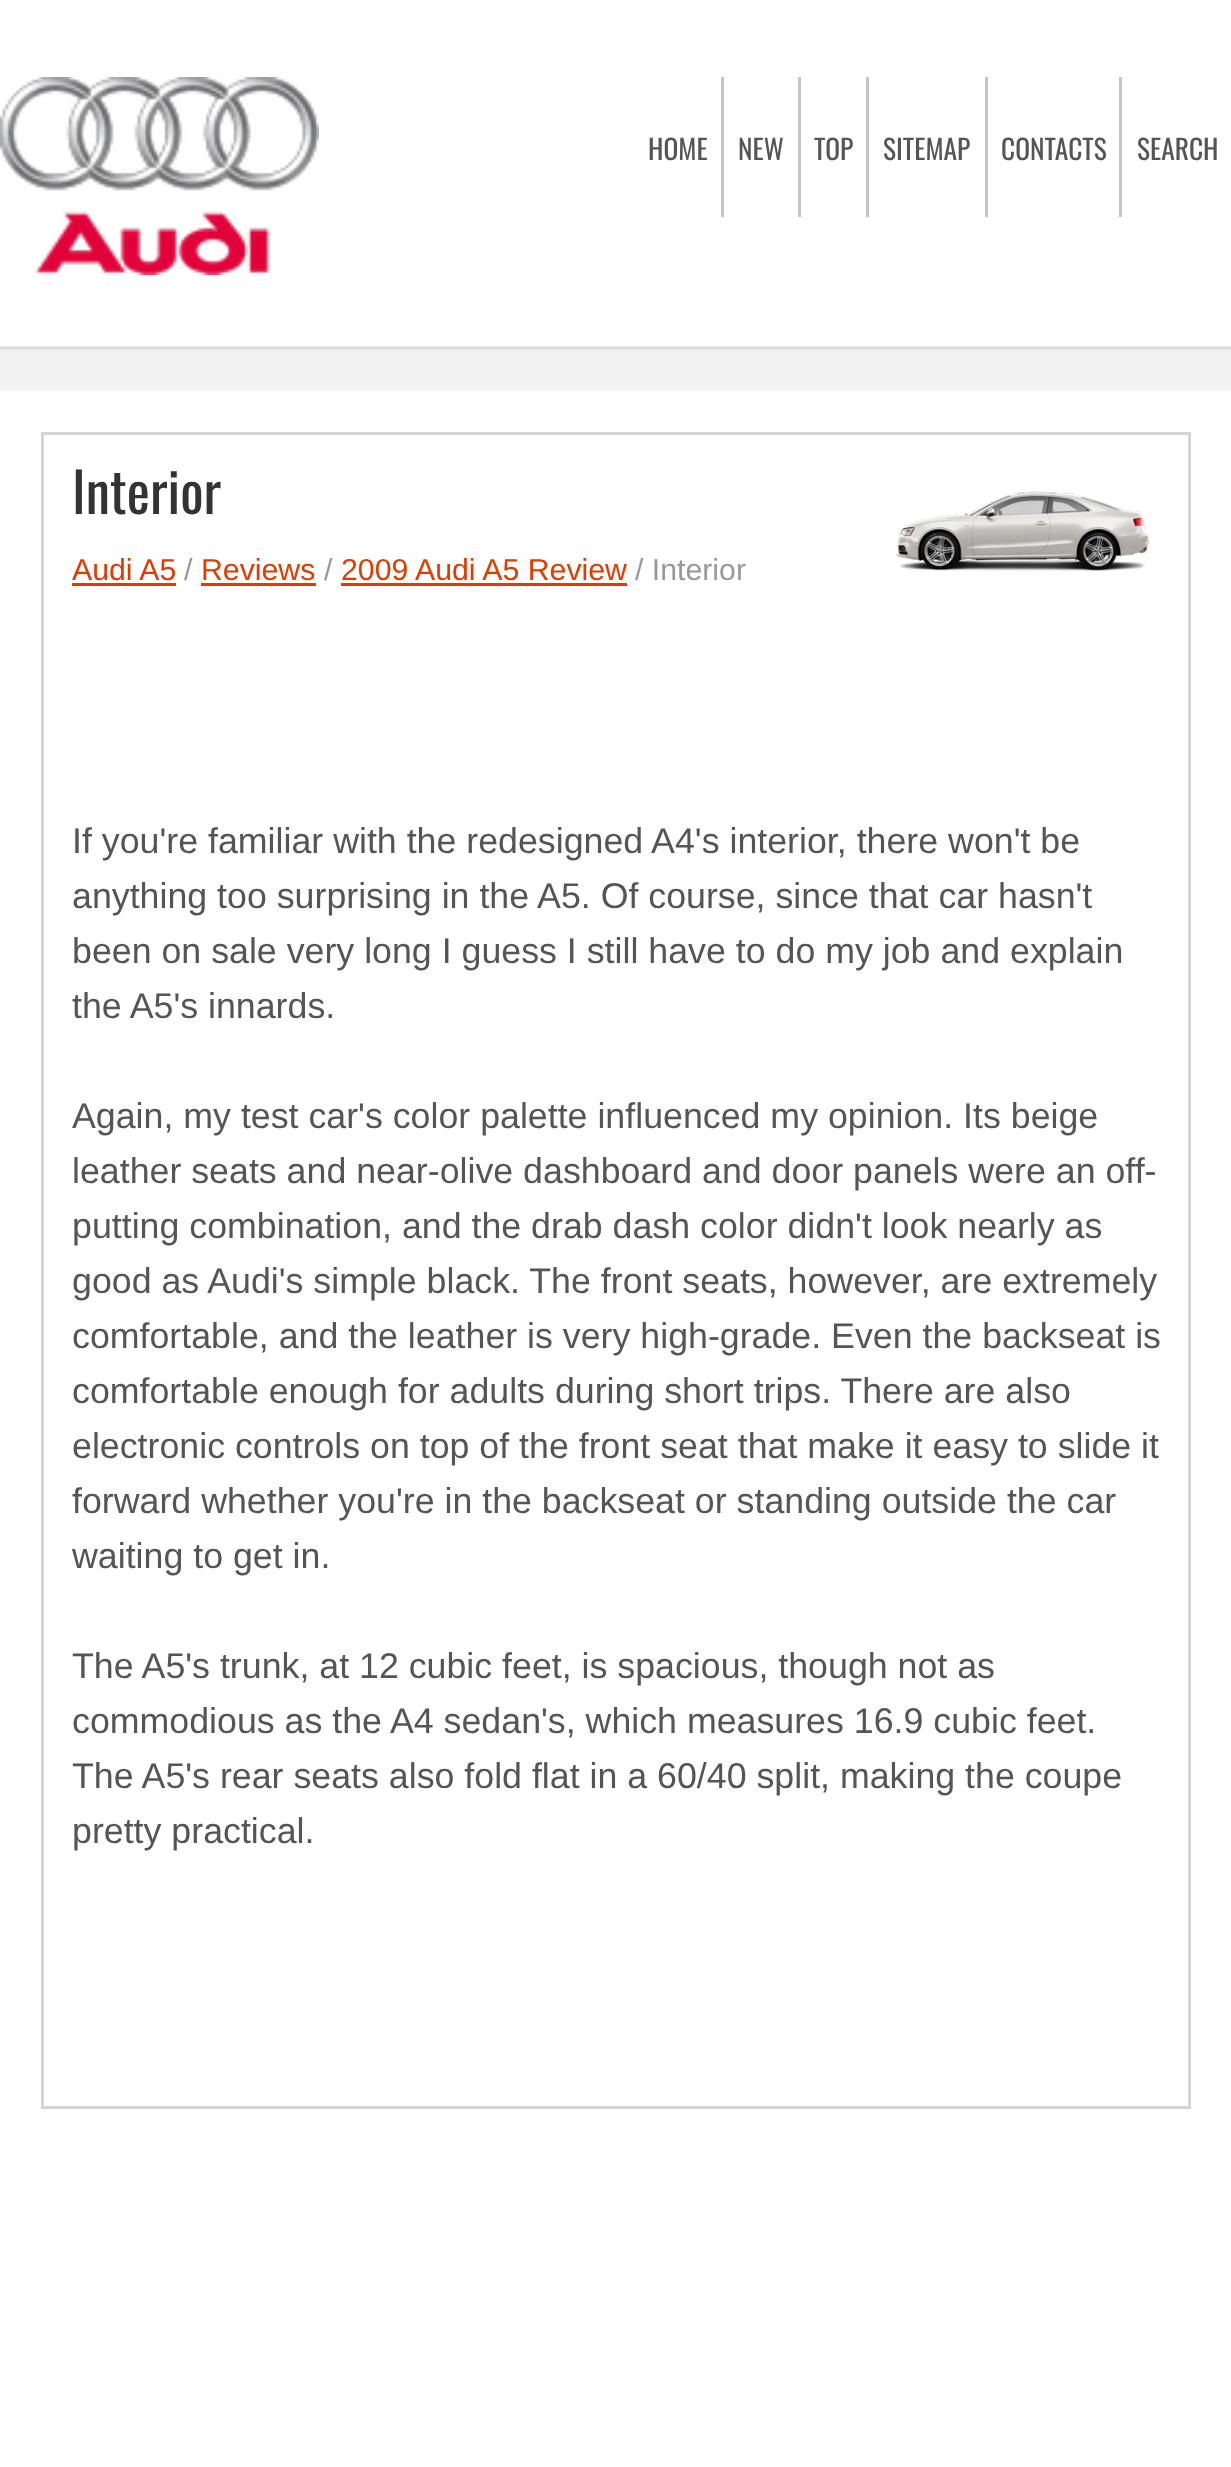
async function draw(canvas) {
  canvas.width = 1231
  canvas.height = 2467
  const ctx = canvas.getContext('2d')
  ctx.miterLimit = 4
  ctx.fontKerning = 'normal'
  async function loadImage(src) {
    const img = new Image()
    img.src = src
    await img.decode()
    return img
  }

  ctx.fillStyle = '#fff'
  ctx.fillRect(0, 0, 1231, 2467)
  ctx.drawImage(await loadImage('image0.png'), 0, 346, 1231, 45)
  ctx.drawImage(await loadImage('image1.png'), 0, 77, 319, 198)
  ctx.font = '27.5px Oswald'
  ctx.fillStyle = '#555'
  ctx.fillText('HOME', 648, 160)
  ctx.fillStyle = '#c5c5c5'
  ctx.fillRect(721, 77, 3, 140)
  ctx.fillStyle = '#555'
  ctx.fillText('NEW', 738, 160)
  ctx.fillStyle = '#c5c5c5'
  ctx.fillRect(798, 77, 3, 140)
  ctx.fillStyle = '#555'
  ctx.fillText('TOP', 814, 160)
  ctx.fillStyle = '#c5c5c5'
  ctx.fillRect(866, 77, 3, 140)
  ctx.fillStyle = '#555'
  ctx.fillText('SITEMAP', 883, 160)
  ctx.fillStyle = '#c5c5c5'
  ctx.fillRect(985, 77, 3, 140)
  ctx.fillStyle = '#555'
  ctx.fillText('CONTACTS', 1001, 160)
  ctx.fillStyle = '#c5c5c5'
  ctx.fillRect(1119, 77, 3, 140)
  ctx.fillStyle = '#555'
  ctx.fillText('SEARCH', 1137, 160)
  ctx.strokeStyle = '#d4d4d4'
  ctx.lineWidth = 3
  ctx.strokeRect(42.5, 433.5, 1147, 1674)
  ctx.font = '55px Oswald'
  ctx.fillStyle = '#333'
  ctx.fillText('Interior', 72, 514)
  ctx.drawImage(await loadImage('image2.png'), 896, 491, 254, 80)
  ctx.font = '30.25px Liberation Sans'
  ctx.fillStyle = '#e13b00'
  ctx.fillText('Audi A5', 72, 580)
  ctx.fillRect(72, 583, 104, 3)
  ctx.fillStyle = '#999'
  ctx.fillText('/', 184, 580)
  ctx.fillStyle = '#e13b00'
  ctx.fillText('Reviews', 201, 580)
  ctx.fillRect(201, 583, 115, 3)
  ctx.fillStyle = '#999'
  ctx.fillText('/', 324, 580)
  ctx.fillStyle = '#e13b00'
  ctx.fillText('2009 Audi A5 Review', 341, 580)
  ctx.fillRect(341, 583, 286, 3)
  ctx.fillStyle = '#999'
  ctx.fillText('/ Interior', 635, 580)
  ctx.font = '35.75px Liberation Sans'
  ctx.fillStyle = '#555'
  ctx.fillText('If you\'re familiar with the redesigned A4\'s interior, there won\'t be', 72, 853)
  ctx.fillText('anything too surprising in the A5. Of course, since that car hasn\'t', 72, 908)
  ctx.fillText('been on sale very long I guess I still have to do my job and explain', 72, 963)
  ctx.fillText('the A5\'s innards.', 72, 1018)
  ctx.fillText('Again, my test car\'s color palette influenced my opinion. Its beige', 72, 1128)
  ctx.fillText('leather seats and near-olive dashboard and door panels were an off-', 72, 1183)
  ctx.fillText('putting combination, and the drab dash color didn\'t look nearly as', 72, 1238)
  ctx.fillText('good as Audi\'s simple black. The front seats, however, are extremely', 72, 1293)
  ctx.fillText('comfortable, and the leather is very high-grade. Even the backseat is', 72, 1348)
  ctx.fillText('comfortable enough for adults during short trips. There are also', 72, 1403)
  ctx.fillText('electronic controls on top of the front seat that make it easy to slide it', 72, 1458)
  ctx.fillText('forward whether you\'re in the backseat or standing outside the car', 72, 1513)
  ctx.fillText('waiting to get in.', 72, 1568)
  ctx.fillText('The A5\'s trunk, at 12 cubic feet, is spacious, though not as', 72, 1678)
  ctx.fillText('commodious as the A4 sedan\'s, which measures 16.9 cubic feet.', 72, 1733)
  ctx.fillText('The A5\'s rear seats also fold flat in a 60/40 split, making the coupe', 72, 1788)
  ctx.fillText('pretty practical.', 72, 1843)
}

draw(document.querySelector('canvas'))
